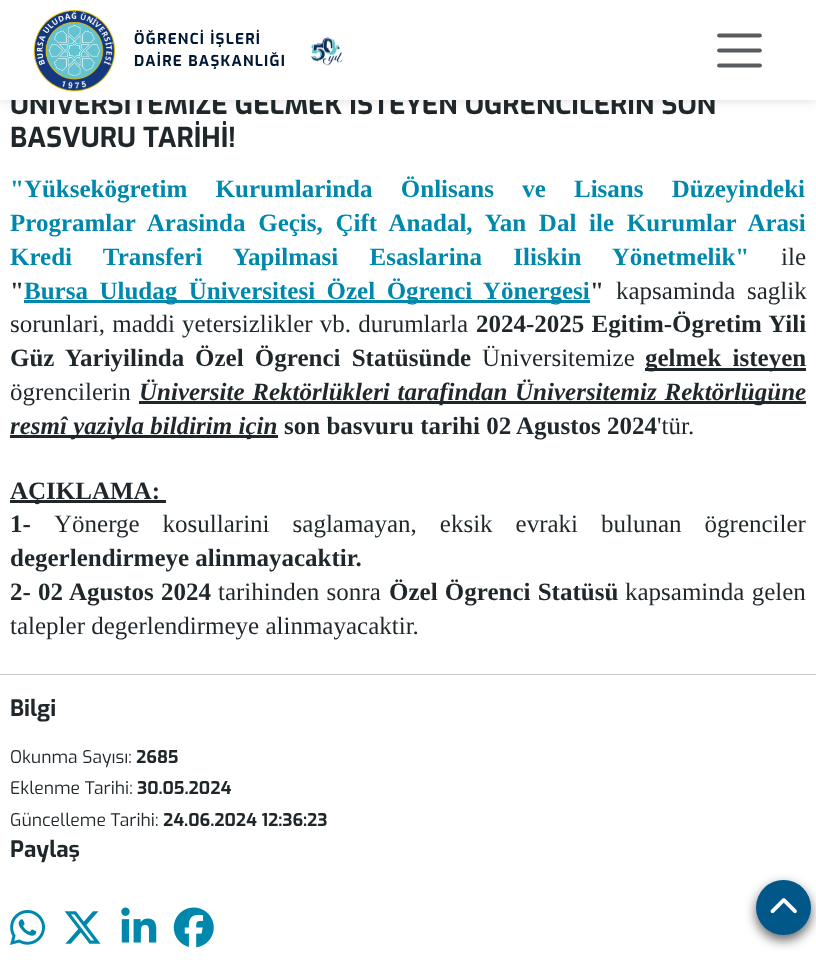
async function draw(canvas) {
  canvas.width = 816
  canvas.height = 960
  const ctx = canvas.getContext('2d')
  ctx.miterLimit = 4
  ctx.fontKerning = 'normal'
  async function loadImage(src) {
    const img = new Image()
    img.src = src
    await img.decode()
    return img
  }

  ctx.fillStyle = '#fff'
  ctx.fillRect(0, 0, 816, 960)
  ctx.fillStyle = '#00000026'
  ctx.filter = 'blur(6px)'
  ctx.beginPath()
  ctx.rect(0, 0, 816, 100)
  ctx.fill()
  ctx.filter = 'none'
  ctx.font = 'bold 27.5px Exo'
  ctx.fillStyle = '#1f272b'
  ctx.fillText('ÜNİVERSİTEMİZE GELMEK ISTEYEN ÖGRENCİLERİN SON', 10, 114)
  ctx.fillStyle = '#fff'
  ctx.fillRect(0, 0, 816, 100)
  ctx.drawImage(await loadImage('image0.png'), 33, 10, 82, 82)
  ctx.letterSpacing = '1.25px'
  ctx.font = 'bold 15px Exo'
  ctx.fillStyle = '#001736'
  ctx.fillText('ÖĞRENCİ İŞLERİ', 134, 44)
  ctx.fillText('DAİRE BAŞKANLIĞI', 134, 66)
  ctx.drawImage(await loadImage('image1.png'), 311, 37, 32, 29)
  ctx.beginPath()
  ctx.moveTo(719, 35.5)
  ctx.lineTo(760, 35.5)
  ctx.moveTo(719, 50.5)
  ctx.lineTo(760, 50.5)
  ctx.moveTo(719, 65.5)
  ctx.lineTo(760, 65.5)
  ctx.strokeStyle = '#595c5f'
  ctx.lineWidth = 3.8
  ctx.lineCap = 'round'
  ctx.stroke()
  ctx.letterSpacing = '0px'
  ctx.font = 'bold 27.5px Exo'
  ctx.fillStyle = '#1f272b'
  ctx.fillText('BASVURU TARİHİ!', 10, 147)
  ctx.wordSpacing = '22px'
  ctx.font = 'bold 25px Liberation Serif'
  ctx.fillStyle = '#0088ac'
  ctx.fillText('"Yüksekögretim Kurumlarinda Önlisans ve Lisans Düzeyindeki', 10, 197)
  ctx.wordSpacing = '6.5px'
  ctx.fillText('Programlar Arasinda Geçis, Çift Anadal, Yan Dal ile Kurumlar Arasi', 10, 231)
  ctx.wordSpacing = '25px'
  ctx.fillText('Kredi Transferi Yapilmasi Esaslarina Iliskin Yönetmelik"', 10, 265)
  ctx.wordSpacing = '0px'
  ctx.font = '25px Liberation Serif'
  ctx.fillStyle = '#1f272b'
  ctx.fillText('ile', 781, 265)
  ctx.font = 'bold 25px Liberation Serif'
  ctx.fillText('"', 10, 299)
  ctx.fillStyle = '#0088ac'
  ctx.fillRect(24, 300, 566, 3)
  ctx.wordSpacing = '5.25px'
  ctx.fillText('Bursa Uludag Üniversitesi Özel Ögrenci Yönergesi', 24, 299)
  ctx.wordSpacing = '0px'
  ctx.fillStyle = '#1f272b'
  ctx.fillText('"', 590, 299)
  ctx.wordSpacing = '5.25px'
  ctx.font = '25px Liberation Serif'
  ctx.fillText('kapsaminda saglik', 616, 299)
  ctx.wordSpacing = '1px'
  ctx.fillText('sorunlari, maddi yetersizlikler vb. durumlarla', 10, 332)
  ctx.font = 'bold 25px Liberation Serif'
  ctx.fillText('2024-2025 Egitim-Ögretim Yili', 476, 332)
  ctx.wordSpacing = '5px'
  ctx.fillText('Güz Yariyilinda', 10, 366)
  ctx.fillText('Özel Ögrenci Statüsünde', 195, 366)
  ctx.wordSpacing = '0px'
  ctx.font = '25px Liberation Serif'
  ctx.fillText('Üniversitemize', 482, 366)
  ctx.fillRect(645, 368, 161, 3)
  ctx.wordSpacing = '5px'
  ctx.font = 'bold 25px Liberation Serif'
  ctx.fillText('gelmek isteyen', 645, 366)
  ctx.wordSpacing = '0px'
  ctx.font = '25px Liberation Serif'
  ctx.fillText('ögrencilerin', 10, 400)
  ctx.fillRect(139, 401, 667, 3)
  ctx.wordSpacing = '1.5px'
  ctx.font = 'italic bold 25px Liberation Serif'
  ctx.fillText('Üniversite Rektörlükleri tarafindan Üniversitemiz Rektörlügüne', 139, 400)
  ctx.fillRect(10, 435, 268, 3)
  ctx.wordSpacing = '0px'
  ctx.fillText('resmî yaziyla bildirim için', 10, 434)
  ctx.font = 'bold 25px Liberation Serif'
  ctx.fillText('son basvuru tarihi 02 Agustos 2024', 284, 434)
  ctx.font = '25px Liberation Serif'
  ctx.fillText('\'tür.', 657, 434)
  ctx.fillRect(10, 500, 156, 3)
  ctx.font = 'bold 25px Liberation Serif'
  ctx.fillText('AÇIKLAMA:', 10, 499)
  ctx.fillText('1-', 10, 532)
  ctx.wordSpacing = '16.75px'
  ctx.font = '25px Liberation Serif'
  ctx.fillText('Yönerge kosullarini saglamayan, eksik evraki bulunan ögrenciler', 54, 532)
  ctx.wordSpacing = '0px'
  ctx.font = 'bold 25px Liberation Serif'
  ctx.fillText('degerlendirmeye alinmayacaktir.', 10, 566)
  ctx.wordSpacing = '1px'
  ctx.fillText('2- 02 Agustos 2024', 10, 600)
  ctx.font = '25px Liberation Serif'
  ctx.fillText('tarihinden sonra', 218, 600)
  ctx.font = 'bold 25px Liberation Serif'
  ctx.fillText('Özel Ögrenci Statüsü', 389, 600)
  ctx.font = '25px Liberation Serif'
  ctx.fillText('kapsaminda gelen', 625, 600)
  ctx.wordSpacing = '0px'
  ctx.fillText('talepler degerlendirmeye alinmayacaktir.', 10, 634)
  ctx.fillStyle = '#c8c9ca'
  ctx.fillRect(0, 674, 816, 1)
  ctx.font = 'bold 22.5px Exo'
  ctx.fillStyle = '#1f272b'
  ctx.fillText('Bilgi', 10, 716)
  ctx.font = '17.5px Exo'
  ctx.fillText('Okunma Sayısı:', 10, 763)
  ctx.font = 'bold 17.5px Exo'
  ctx.fillText('2685', 136, 763)
  ctx.font = '17.5px Exo'
  ctx.fillText('Eklenme Tarihi:', 10, 794)
  ctx.font = 'bold 17.5px Exo'
  ctx.fillText('30.05.2024', 137, 794)
  ctx.font = '17.5px Exo'
  ctx.fillText('Güncelleme Tarihi:', 10, 826)
  ctx.font = 'bold 17.5px Exo'
  ctx.fillText('24.06.2024 12:36:23', 163, 826)
  ctx.font = 'bold 22.5px Exo'
  ctx.fillText('Paylaş', 10, 857)
  ctx.drawImage(await loadImage('image2.png'), 10, 910, 35, 35)
  ctx.drawImage(await loadImage('image3.png'), 64, 911, 37, 33)
  ctx.drawImage(await loadImage('image4.png'), 121, 907, 36, 36)
  ctx.drawImage(await loadImage('image5.png'), 173, 907, 41, 41)
  ctx.fillStyle = '#0000009e'
  ctx.filter = 'blur(6px)'
  ctx.beginPath()
  ctx.roundRect(756, 885, 55, 55, 27.5)
  ctx.fill()
  ctx.filter = 'none'
  ctx.fillStyle = '#015788'
  ctx.beginPath()
  ctx.arc(783.5, 907.5, 27.5, 0, 2 * Math.PI)
  ctx.fill()
  ctx.drawImage(await loadImage('image6.png'), 770, 898, 27, 16)
}

draw(document.querySelector('canvas'))
